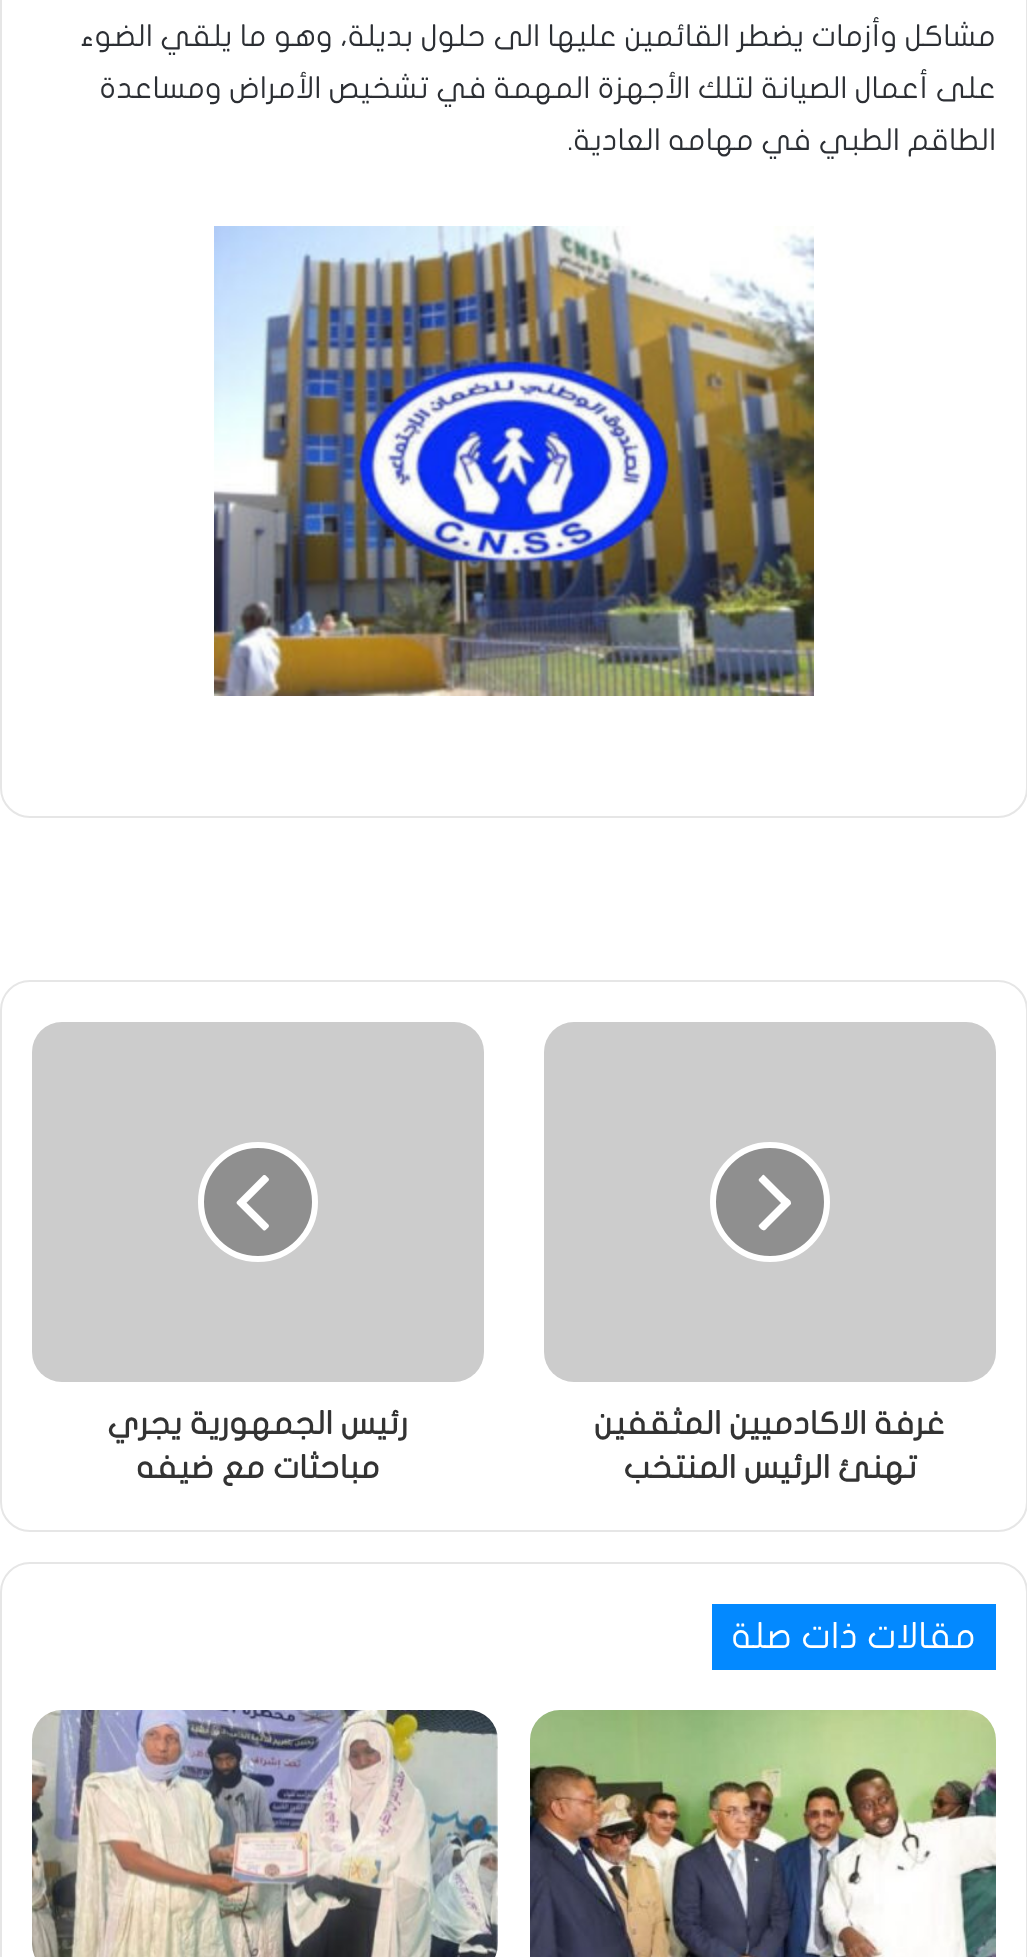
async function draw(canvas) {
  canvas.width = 1027
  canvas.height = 1957
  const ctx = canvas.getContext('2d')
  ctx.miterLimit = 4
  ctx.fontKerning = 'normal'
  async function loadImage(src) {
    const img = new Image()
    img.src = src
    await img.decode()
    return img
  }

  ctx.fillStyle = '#fff'
  ctx.fillRect(0, 0, 1027, 1957)
  ctx.beginPath()
  ctx.roundRect(1, -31, 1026, 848, 29)
  ctx.strokeStyle = '#e6e6e6'
  ctx.lineWidth = 2
  ctx.stroke()
  ctx.direction = 'rtl'
  ctx.font = '30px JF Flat'
  ctx.fillStyle = '#2c2f34'
  ctx.fillText('مشاكل وأزمات يضطر القائمين عليها الى حلول بديلة، وهو ما يلقي الضوء', 996, 46)
  ctx.fillText('على أعمال الصيانة لتلك الأجهزة المهمة في تشخيص الأمراض ومساعدة', 996, 98)
  ctx.fillText('الطاقم الطبي في مهامه العادية.', 996, 150)
  ctx.drawImage(await loadImage('image0.png'), 214, 226, 600, 470)
  ctx.beginPath()
  ctx.roundRect(1, 981, 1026, 550, 29)
  ctx.stroke()
  ctx.fillStyle = '#ccc'
  ctx.beginPath()
  ctx.roundRect(544, 1022, 452, 360, 30)
  ctx.fill()
  ctx.fillStyle = '#8f8f8f'
  ctx.beginPath()
  ctx.arc(770, 1202, 57, 0, 2 * Math.PI)
  ctx.fill()
  ctx.strokeStyle = '#fff'
  ctx.lineWidth = 6
  ctx.stroke()
  ctx.fillStyle = '#fff'
  ctx.beginPath()
  ctx.moveTo(791, 1203)
  ctx.lineTo(791, 1204)
  ctx.lineTo(769, 1226)
  ctx.bezierCurveTo(765, 1230, 765, 1232, 761, 1229)
  ctx.bezierCurveTo(759, 1227, 758, 1226, 759, 1225)
  ctx.lineTo(781, 1203)
  ctx.lineTo(759, 1181)
  ctx.bezierCurveTo(758, 1179, 760, 1178, 761, 1177)
  ctx.bezierCurveTo(762, 1176, 763, 1174, 764, 1175)
  ctx.lineTo(786, 1197)
  ctx.bezierCurveTo(788, 1199, 791, 1200, 791, 1203)
  ctx.closePath()
  ctx.fill()
  ctx.font = 'bold 32px JF Flat'
  ctx.fillStyle = '#333'
  ctx.fillText('غرفة الاكادميين المثقفين', 945, 1434)
  ctx.fillText('تهنئ الرئيس', 917, 1478)
  ctx.fillText('المنتخب', 736, 1478)
  ctx.fillStyle = '#ccc'
  ctx.beginPath()
  ctx.roundRect(32, 1022, 452, 360, 30)
  ctx.fill()
  ctx.fillStyle = '#8f8f8f'
  ctx.beginPath()
  ctx.arc(258, 1202, 57, 0, 2 * Math.PI)
  ctx.fill()
  ctx.stroke()
  ctx.drawImage(await loadImage('image1.png'), 236, 1175, 33, 56)
  ctx.fillStyle = '#333'
  ctx.fillText('رئيس الجمهورية يجري', 408, 1434)
  ctx.fillText('مباحثات مع ضيفه', 380, 1478)
  ctx.beginPath()
  ctx.roundRect(1, 1563, 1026, 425, 29)
  ctx.strokeStyle = '#e6e6e6'
  ctx.lineWidth = 2
  ctx.stroke()
  ctx.fillStyle = '#0389ff'
  ctx.fillRect(712, 1604, 284, 66)
  ctx.font = '36px JF Flat'
  ctx.fillStyle = '#fff'
  ctx.fillText('مقالات ذات صلة', 976, 1648)
  ctx.drawImage(await loadImage('image2.png'), 530, 1710, 466, 247)
  ctx.drawImage(await loadImage('image3.png'), 32, 1710, 466, 247)
}

draw(document.querySelector('canvas'))
